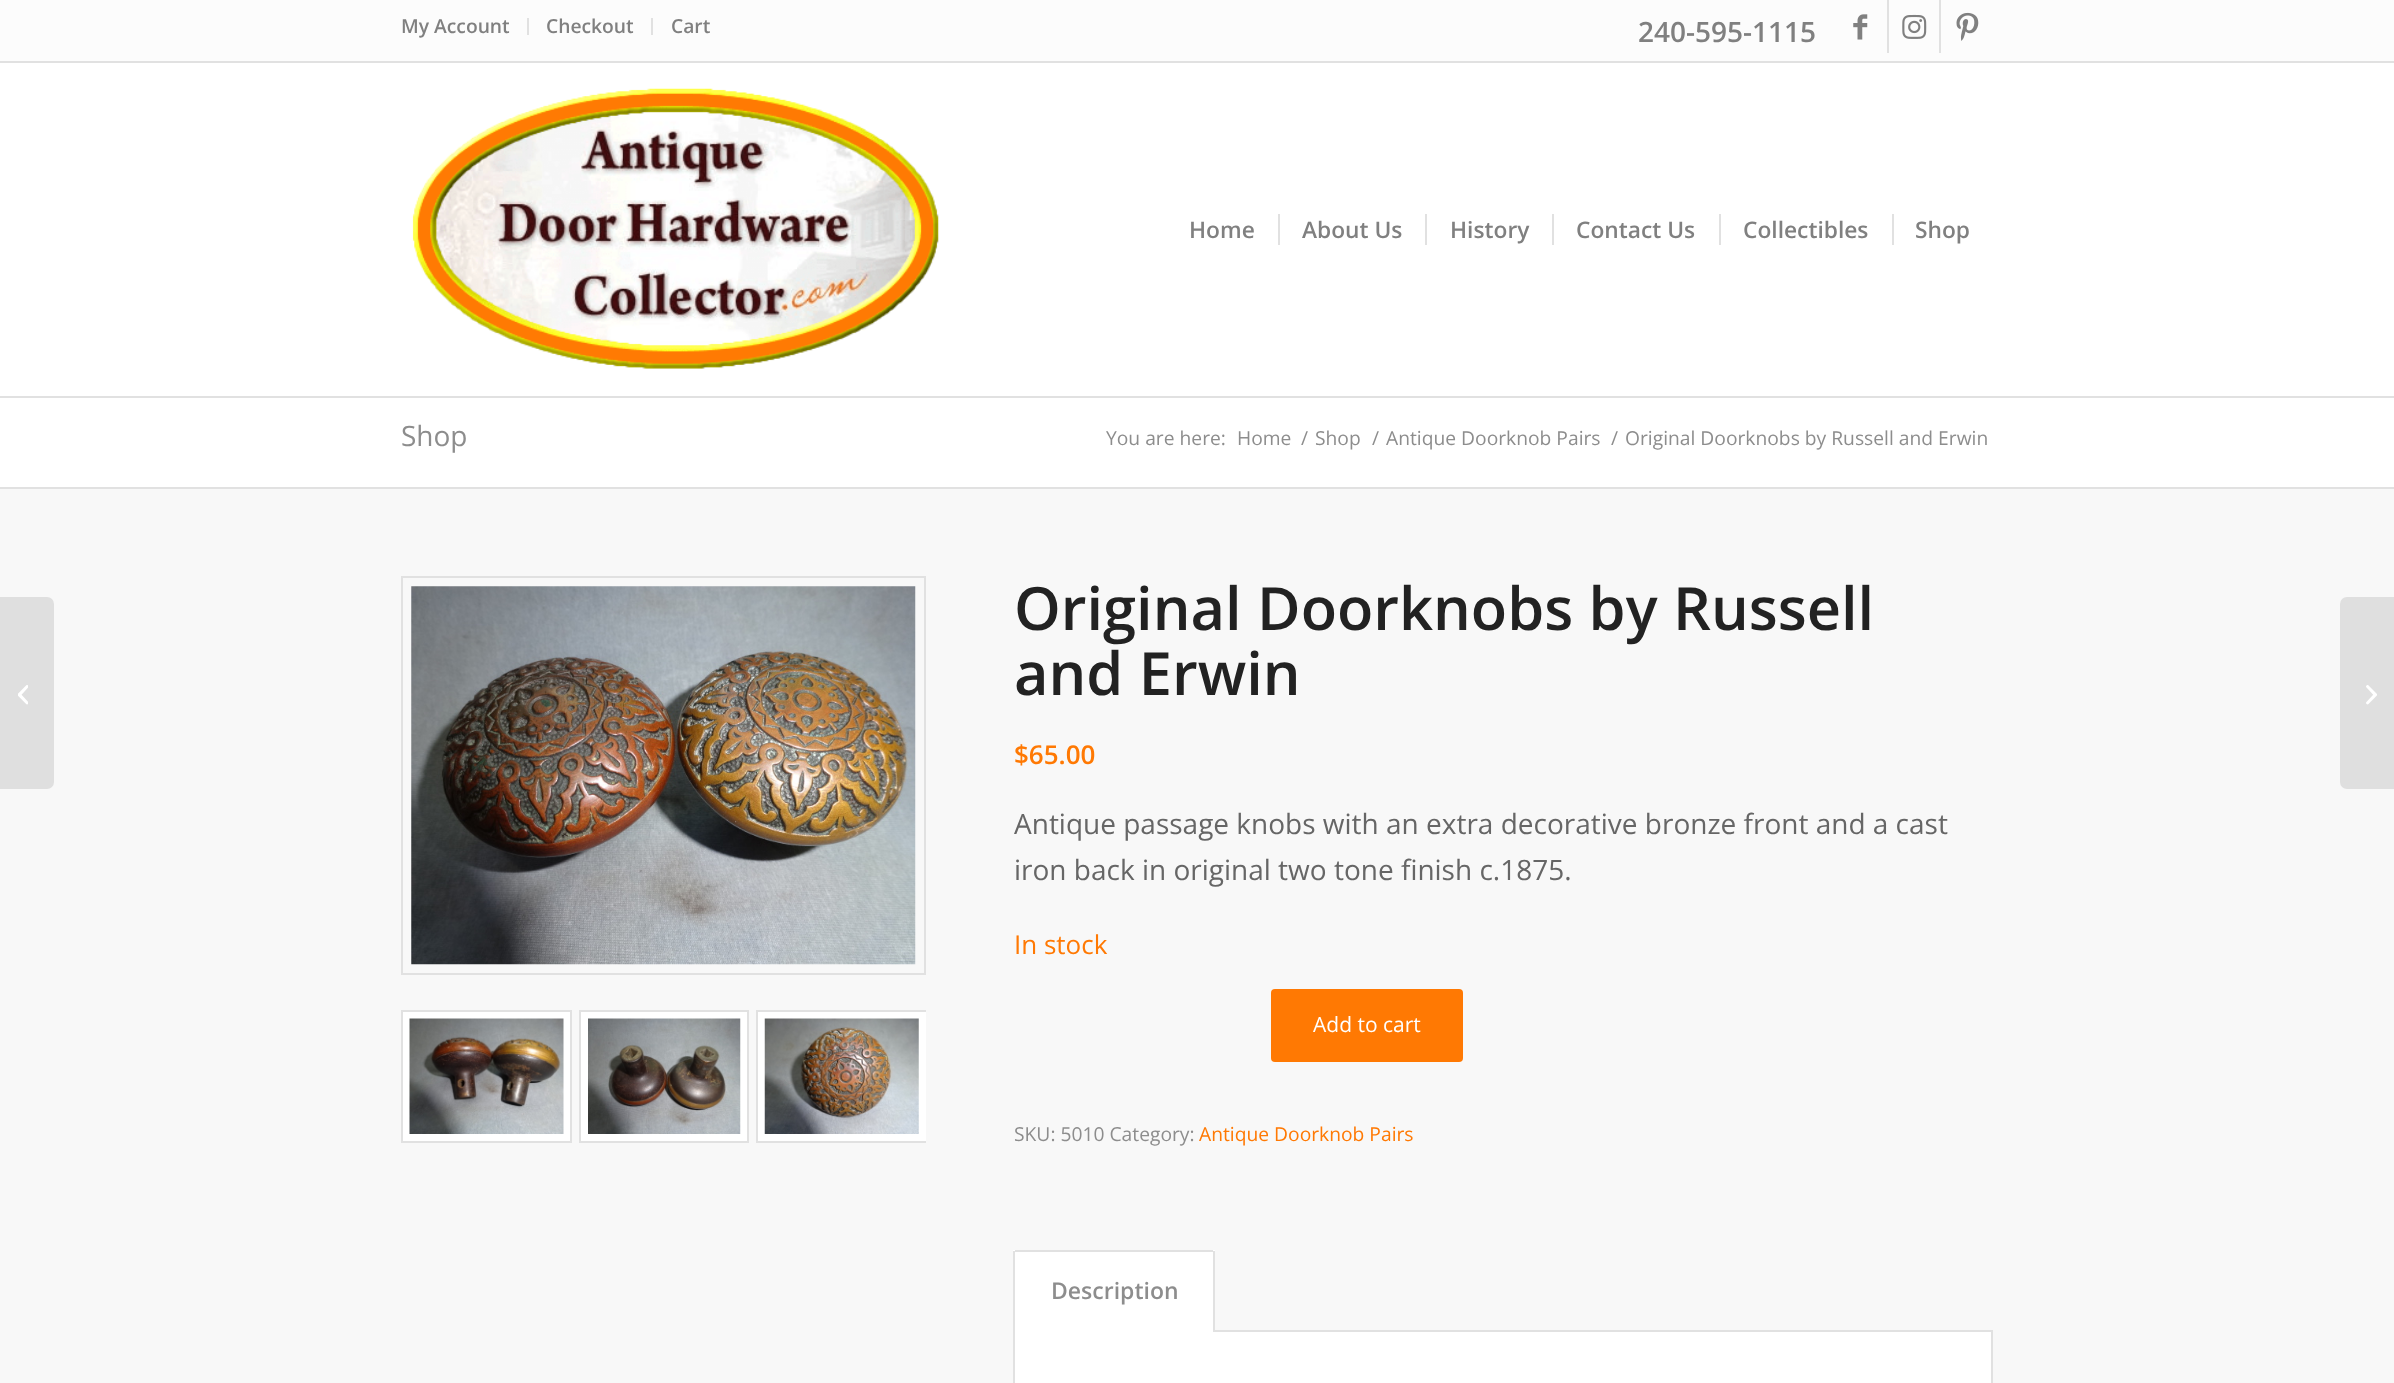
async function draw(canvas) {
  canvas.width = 2394
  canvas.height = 1383
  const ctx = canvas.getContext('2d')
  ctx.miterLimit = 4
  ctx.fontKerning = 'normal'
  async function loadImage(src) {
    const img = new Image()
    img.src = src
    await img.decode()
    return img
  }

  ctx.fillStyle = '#fff'
  ctx.fillRect(0, 0, 2394, 1383)
  ctx.fillStyle = '#fcfcfc'
  ctx.fillRect(0, 0, 2394, 61)
  ctx.fillStyle = '#e1e1e1'
  ctx.fillRect(0, 61, 2394, 2)
  ctx.fillRect(527, 18, 2, 17)
  ctx.font = '600 19.25px Open Sans'
  ctx.fillStyle = '#808080'
  ctx.fillText('My Account', 401, 33)
  ctx.fillStyle = '#e1e1e1'
  ctx.fillRect(651, 18, 2, 17)
  ctx.fillStyle = '#808080'
  ctx.fillText('Checkout', 546, 33)
  ctx.fillText('Cart', 671, 33)
  ctx.font = '600 28px Open Sans'
  ctx.fillText('240-595-1115', 1638, 42)
  ctx.fillStyle = '#e1e1e1'
  ctx.fillRect(1887, 0, 2, 53)
  ctx.drawImage(await loadImage('image0.png'), 1853, 14, 15, 26)
  ctx.fillRect(1939, 0, 2, 53)
  ctx.drawImage(await loadImage('image1.png'), 1902, 14, 25, 25)
  ctx.drawImage(await loadImage('image2.png'), 1956, 12, 23, 29)
  ctx.fillRect(0, 396, 2394, 2)
  ctx.drawImage(await loadImage('image3.png'), 412, 88, 527, 281)
  ctx.font = '600 22.75px Open Sans'
  ctx.fillStyle = '#808080'
  ctx.fillText('Home', 1189, 238)
  ctx.fillText('About Us', 1302, 238)
  ctx.fillStyle = '#e1e1e1'
  ctx.fillRect(1278, 214, 2, 31)
  ctx.fillStyle = '#808080'
  ctx.fillText('History', 1450, 238)
  ctx.fillStyle = '#e1e1e1'
  ctx.fillRect(1425, 214, 2, 31)
  ctx.fillStyle = '#808080'
  ctx.fillText('Contact Us', 1576, 238)
  ctx.fillStyle = '#e1e1e1'
  ctx.fillRect(1552, 214, 2, 31)
  ctx.fillStyle = '#808080'
  ctx.fillText('Collectibles', 1743, 238)
  ctx.fillStyle = '#e1e1e1'
  ctx.fillRect(1719, 214, 2, 31)
  ctx.fillStyle = '#808080'
  ctx.fillText('Shop', 1915, 238)
  ctx.fillStyle = '#e1e1e1'
  ctx.fillRect(1892, 214, 2, 31)
  ctx.fillStyle = '#f8f8f8'
  ctx.fillRect(0, 489, 2394, 894)
  ctx.fillStyle = '#dfdfdf'
  ctx.beginPath()
  ctx.roundRect(0, 597, 54, 192, [0, 7, 7, 0])
  ctx.fill()
  ctx.drawImage(await loadImage('image4.png'), 18, 685, 10, 20)
  ctx.font = '28px Open Sans'
  ctx.fillStyle = '#8d8d8d'
  ctx.fillText('Shop', 401, 446)
  ctx.font = '19.25px Open Sans'
  ctx.fillText('You are here:', 1106, 445)
  ctx.fillText('Home', 1237, 445)
  ctx.fillText('/', 1301, 445)
  ctx.fillText('Shop', 1315, 445)
  ctx.fillText('/', 1372, 445)
  ctx.fillText('Antique Doorknob Pairs', 1386, 445)
  ctx.fillText('/', 1611, 445)
  ctx.fillText('Original Doorknobs by Russell and Erwin', 1625, 445)
  ctx.fillStyle = '#e1e1e1'
  ctx.fillRect(0, 487, 2394, 2)
  ctx.strokeStyle = '#e1e1e1'
  ctx.lineWidth = 2
  ctx.strokeRect(402, 577, 523, 397)
  ctx.drawImage(await loadImage('image5.png'), 411, 586, 505, 379)
  ctx.fillStyle = '#fff'
  ctx.beginPath()
  ctx.rect(402, 1011, 169, 131)
  ctx.fill()
  ctx.stroke()
  ctx.drawImage(await loadImage('image6.png'), 409, 1018, 155, 116)
  ctx.beginPath()
  ctx.rect(580, 1011, 168, 131)
  ctx.fill()
  ctx.stroke()
  ctx.drawImage(await loadImage('image7.png'), 588, 1018, 153, 116)
  ctx.fillRect(758, 1012, 168, 129)
  ctx.save()
  ctx.beginPath()
  ctx.rect(401, 576, 525, 731)
  ctx.clip()
  ctx.strokeRect(757, 1011, 170, 131)
  ctx.restore()
  ctx.drawImage(await loadImage('image8.png'), 764, 1018, 155, 116)
  ctx.font = '600 59.5px Open Sans'
  ctx.fillStyle = '#222'
  ctx.fillText('Original Doorknobs by Russell', 1014, 630)
  ctx.fillText('and Erwin', 1014, 695)
  ctx.font = '600 26px Open Sans'
  ctx.fillStyle = '#ff7903'
  ctx.fillText('$65.00', 1014, 764)
  ctx.font = '28px Open Sans'
  ctx.fillStyle = '#666'
  ctx.fillText('Antique passage knobs with an extra decorative bronze front and a cast', 1014, 834)
  ctx.fillText('iron back in original two tone finish c.1875.', 1014, 880)
  ctx.font = '26px Open Sans'
  ctx.fillStyle = '#ff7903'
  ctx.fillText('In stock', 1014, 954)
  ctx.beginPath()
  ctx.roundRect(1271, 989, 192, 73, 4)
  ctx.fill()
  ctx.font = '21px Open Sans'
  ctx.fillStyle = '#fff'
  ctx.fillText('Add to cart', 1313, 1032)
  ctx.font = '19.25px Open Sans'
  ctx.fillStyle = '#8d8d8d'
  ctx.fillText('SKU: 5010 Category:', 1014, 1141)
  ctx.fillStyle = '#ff7903'
  ctx.fillText('Antique Doorknob Pairs', 1199, 1141)
  ctx.fillStyle = '#fff'
  ctx.beginPath()
  ctx.rect(1014, 1331, 978, 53)
  ctx.fill()
  ctx.stroke()
  ctx.fillRect(1013, 1250, 202, 82)
  ctx.fillStyle = '#e1e1e1'
  ctx.fillRect(1015, 1250, 198, 2)
  ctx.fillRect(1213, 1251, 2, 81)
  ctx.fillRect(1013, 1251, 2, 81)
  ctx.font = '600 23px Open Sans'
  ctx.fillStyle = '#8d8d8d'
  ctx.fillText('Description', 1051, 1299)
  ctx.fillStyle = '#dfdfdf'
  ctx.beginPath()
  ctx.roundRect(2340, 597, 54, 192, [7, 0, 0, 7])
  ctx.fill()
  ctx.drawImage(await loadImage('image9.png'), 2366, 685, 11, 20)
}

draw(document.querySelector('canvas'))
